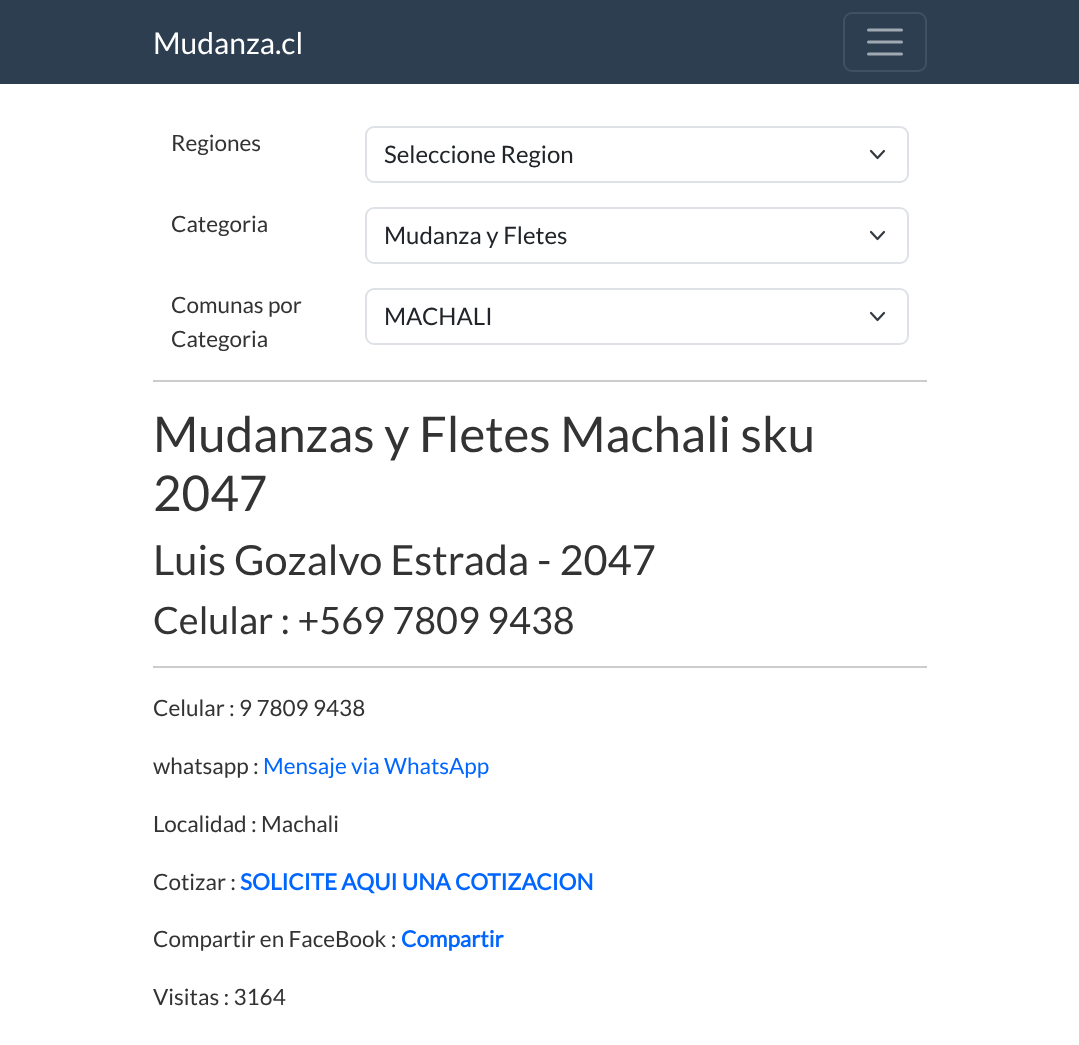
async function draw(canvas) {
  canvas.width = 1079
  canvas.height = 1045
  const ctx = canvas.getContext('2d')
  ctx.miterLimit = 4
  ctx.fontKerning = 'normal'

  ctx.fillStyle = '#fff'
  ctx.fillRect(0, 0, 1079, 1045)
  ctx.fillStyle = '#2c3e50'
  ctx.fillRect(0, 0, 1079, 84)
  ctx.font = '30px Lato'
  ctx.fillStyle = '#fff'
  ctx.fillText('Mudanza.cl', 153, 54)
  ctx.beginPath()
  ctx.roundRect(844, 13, 82, 58, 8)
  ctx.strokeStyle = '#415162'
  ctx.lineWidth = 2
  ctx.stroke()
  ctx.beginPath()
  ctx.moveTo(868.5, 30)
  ctx.lineTo(901.5, 30)
  ctx.moveTo(868.5, 42)
  ctx.lineTo(901.5, 42)
  ctx.moveTo(868.5, 54)
  ctx.lineTo(901.5, 54)
  ctx.strokeStyle = '#a0a8b0'
  ctx.lineWidth = 3
  ctx.lineCap = 'round'
  ctx.stroke()
  ctx.font = '22.5px Lato'
  ctx.fillStyle = '#333'
  ctx.fillText('Regiones', 171, 151)
  ctx.beginPath()
  ctx.moveTo(871, 151)
  ctx.lineTo(877.5, 158)
  ctx.lineTo(884, 151)
  ctx.strokeStyle = '#343a40'
  ctx.lineWidth = 2.2
  ctx.lineJoin = 'round'
  ctx.stroke()
  ctx.beginPath()
  ctx.roundRect(366, 127, 542, 55, 8)
  ctx.strokeStyle = '#dee2e6'
  ctx.lineWidth = 2
  ctx.lineJoin = 'miter'
  ctx.stroke()
  ctx.font = '24px Lato'
  ctx.fillStyle = '#212529'
  ctx.fillText('Seleccione Region', 384, 163)
  ctx.font = '22.5px Lato'
  ctx.fillStyle = '#333'
  ctx.fillText('Categoria', 171, 232)
  ctx.beginPath()
  ctx.moveTo(871, 232)
  ctx.lineTo(877.5, 239)
  ctx.lineTo(884, 232)
  ctx.strokeStyle = '#343a40'
  ctx.lineWidth = 2.2
  ctx.lineJoin = 'round'
  ctx.stroke()
  ctx.beginPath()
  ctx.roundRect(366, 208, 542, 55, 8)
  ctx.strokeStyle = '#dee2e6'
  ctx.lineWidth = 2
  ctx.lineJoin = 'miter'
  ctx.stroke()
  ctx.font = '24px Lato'
  ctx.fillStyle = '#212529'
  ctx.fillText('Mudanza y Fletes', 384, 244)
  ctx.font = '22.5px Lato'
  ctx.fillStyle = '#333'
  ctx.fillText('Comunas por', 171, 313)
  ctx.fillText('Categoria', 171, 347)
  ctx.beginPath()
  ctx.moveTo(871, 313)
  ctx.lineTo(877.5, 320)
  ctx.lineTo(884, 313)
  ctx.strokeStyle = '#343a40'
  ctx.lineWidth = 2.2
  ctx.lineJoin = 'round'
  ctx.stroke()
  ctx.beginPath()
  ctx.roundRect(366, 289, 542, 55, 8)
  ctx.strokeStyle = '#dee2e6'
  ctx.lineWidth = 2
  ctx.lineJoin = 'miter'
  ctx.stroke()
  ctx.font = '24px Lato'
  ctx.fillStyle = '#212529'
  ctx.fillText('MACHALI', 384, 325)
  ctx.fillStyle = '#ccc'
  ctx.fillRect(153, 380, 774, 2)
  ctx.font = '49.25px Lato'
  ctx.fillStyle = '#333'
  ctx.fillText('Mudanzas y Fletes Machali sku', 153, 452)
  ctx.fillText('2047', 153, 511)
  ctx.font = '41.5px Lato'
  ctx.fillText('Luis Gozalvo Estrada - 2047', 153, 575)
  ctx.font = '37.75px Lato'
  ctx.fillText('Celular : +569 7809 9438', 153, 634)
  ctx.fillStyle = '#ccc'
  ctx.fillRect(153, 666, 774, 2)
  ctx.font = '22.5px Lato'
  ctx.fillStyle = '#333'
  ctx.fillText('Celular : 9 7809 9438', 153, 716)
  ctx.fillText('whatsapp :', 153, 774)
  ctx.fillStyle = '#06f'
  ctx.fillText('Mensaje via WhatsApp', 263, 774)
  ctx.fillStyle = '#333'
  ctx.fillText('Localidad : Machali', 153, 832)
  ctx.fillText('Cotizar :', 153, 890)
  ctx.font = 'bold 22.5px Lato'
  ctx.fillStyle = '#06f'
  ctx.fillText('SOLICITE AQUI UNA COTIZACION', 240, 890)
  ctx.font = '22.5px Lato'
  ctx.fillStyle = '#333'
  ctx.fillText('Compartir en FaceBook :', 153, 947)
  ctx.font = 'bold 22.5px Lato'
  ctx.fillStyle = '#06f'
  ctx.fillText('Compartir', 401, 947)
  ctx.font = '22.5px Lato'
  ctx.fillStyle = '#333'
  ctx.fillText('Visitas : 3164', 153, 1005)
}

draw(document.querySelector('canvas'))
